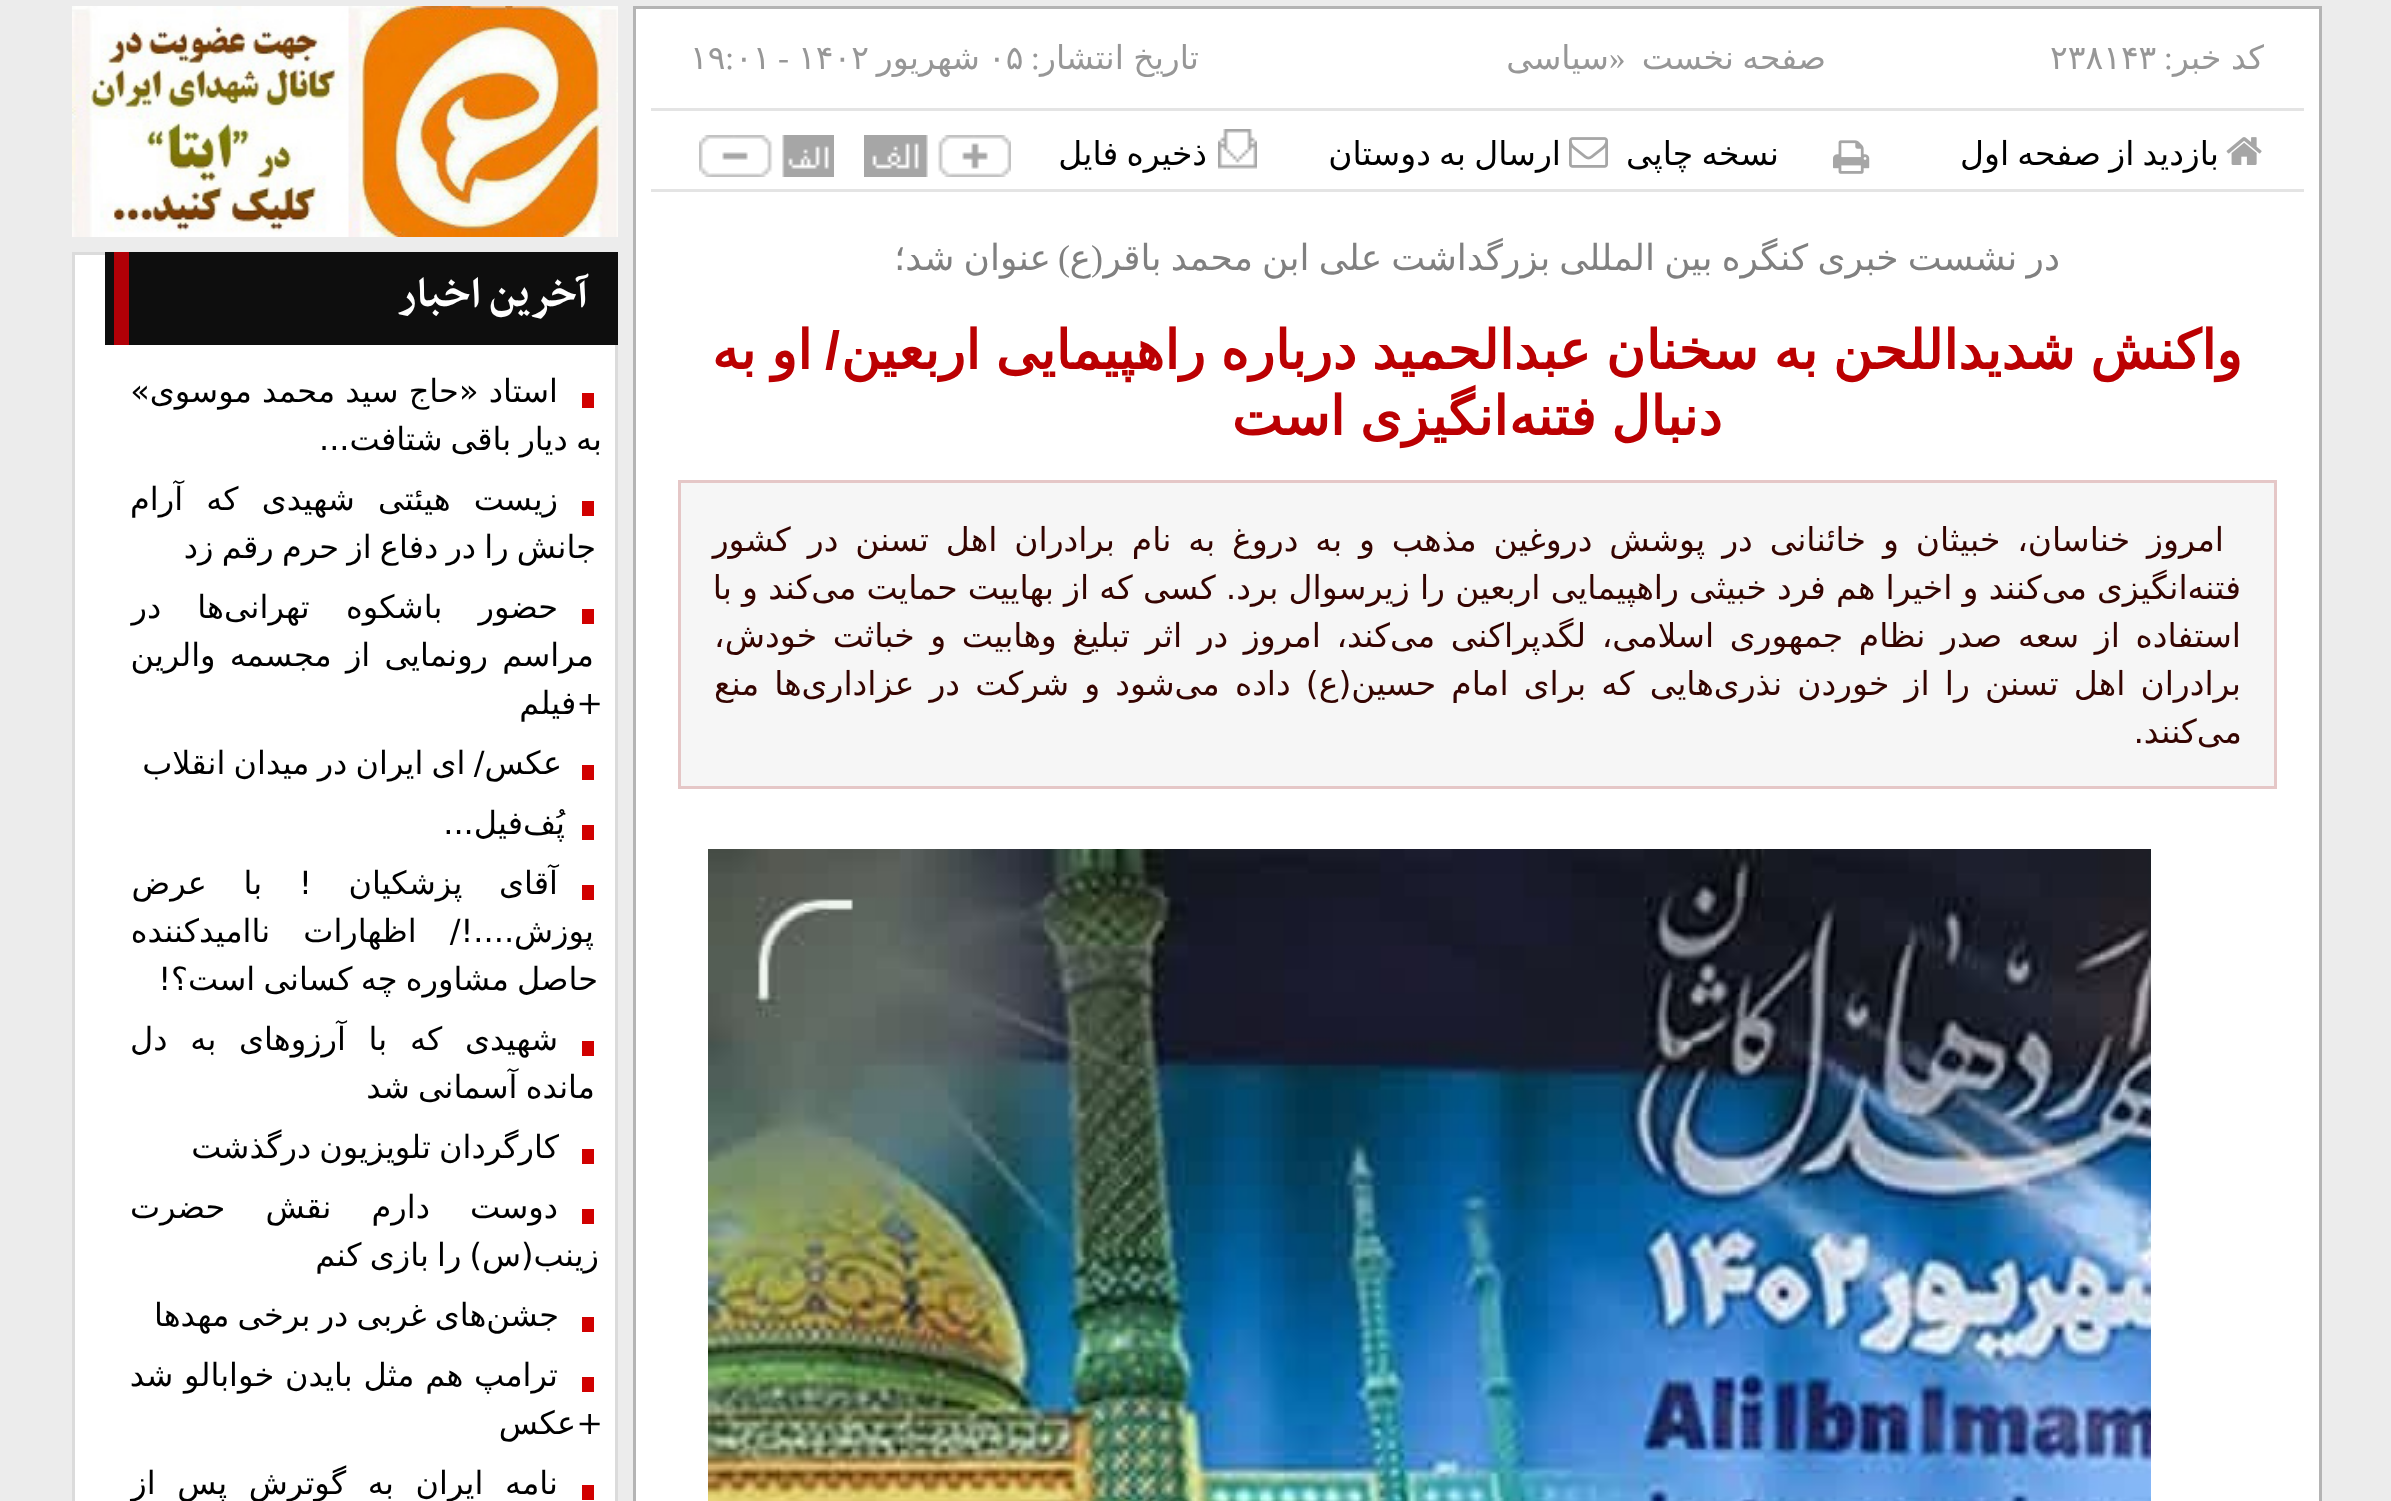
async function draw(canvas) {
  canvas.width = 2391
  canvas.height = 1501
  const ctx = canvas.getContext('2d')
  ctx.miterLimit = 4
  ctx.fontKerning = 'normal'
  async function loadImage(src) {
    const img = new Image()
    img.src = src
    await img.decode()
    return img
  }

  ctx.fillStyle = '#ececec'
  ctx.fillRect(0, 0, 2391, 1501)
  ctx.fillStyle = '#fff'
  ctx.beginPath()
  ctx.rect(634.5, 7.5, 1686, 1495)
  ctx.fill()
  ctx.strokeStyle = '#b4b4b4'
  ctx.lineWidth = 3
  ctx.stroke()
  ctx.wordSpacing = '-1px'
  ctx.direction = 'rtl'
  ctx.font = '33px DejaVu Sans'
  ctx.fillStyle = '#979797'
  ctx.fillText('کد خبر', 2264, 69)
  ctx.wordSpacing = '0px'
  ctx.font = '33px Liberation Serif'
  ctx.fillText(':', 2173, 69)
  ctx.direction = 'ltr'
  ctx.font = '33px DejaVu Sans'
  ctx.fillText('۲۳۸۱۴۳', 2050, 69)
  ctx.wordSpacing = '-2.25px'
  ctx.direction = 'rtl'
  ctx.fillText('صفحه نخست', 1826, 69)
  ctx.wordSpacing = '0px'
  ctx.direction = 'ltr'
  ctx.font = '33px Liberation Serif'
  ctx.fillText('»', 1609, 69)
  ctx.direction = 'rtl'
  ctx.font = '33px DejaVu Sans'
  ctx.fillText('سیاسی', 1609, 69)
  ctx.wordSpacing = '-1px'
  ctx.fillText('تاریخ انتشار', 1199, 69)
  ctx.wordSpacing = '0px'
  ctx.font = '33px Liberation Serif'
  ctx.fillText(':', 1040, 69)
  ctx.direction = 'ltr'
  ctx.font = '33px DejaVu Sans'
  ctx.fillText('۰۵', 988, 69)
  ctx.direction = 'rtl'
  ctx.fillText('شهريور', 980, 69)
  ctx.direction = 'ltr'
  ctx.fillText('۱۴۰۲', 798, 69)
  ctx.font = '33px Liberation Serif'
  ctx.fillText('-', 778, 69)
  ctx.font = '33px DejaVu Sans'
  ctx.fillText('۰۱', 735, 69)
  ctx.font = '33px Liberation Serif'
  ctx.fillText(':', 725, 69)
  ctx.font = '33px DejaVu Sans'
  ctx.fillText('۱۹', 690, 69)
  ctx.fillStyle = '#e4e4e4'
  ctx.fillRect(651, 108, 1653, 3)
  ctx.fillRect(651, 189, 1653, 3)
  ctx.drawImage(await loadImage('image0.png'), 2226, 137, 36, 28)
  ctx.wordSpacing = '-2.25px'
  ctx.direction = 'rtl'
  ctx.fillStyle = '#000'
  ctx.fillText('بازدید از صفحه اول', 2219, 165)
  ctx.drawImage(await loadImage('image1.png'), 1833, 140, 37, 34)
  ctx.fillText('نسخه چاپی', 1779, 165)
  ctx.drawImage(await loadImage('image2.png'), 1569, 137, 39, 31)
  ctx.fillText('ارسال به دوستان', 1561, 165)
  ctx.drawImage(await loadImage('image3.png'), 1218, 129, 39, 40)
  ctx.fillText('ذخیره فایل', 1207, 165)
  ctx.drawImage(await loadImage('image4.png'), 864, 135, 147, 42)
  ctx.drawImage(await loadImage('image5.png'), 699, 135, 135, 42)
  ctx.wordSpacing = '0px'
  ctx.font = '36px Liberation Serif'
  ctx.fillStyle = '#808080'
  ctx.fillText('(', 1103, 270)
  ctx.wordSpacing = '-2.25px'
  ctx.font = '36px DejaVu Sans'
  ctx.fillText('در نشست خبری کنگره بین المللی بزرگداشت علی ابن محمد باقر', 2060, 270)
  ctx.wordSpacing = '0px'
  ctx.fillText('ع', 1091, 270)
  ctx.font = '36px Liberation Serif'
  ctx.fillText(')', 1070, 270)
  ctx.wordSpacing = '-2.25px'
  ctx.font = '36px DejaVu Sans'
  ctx.fillText('عنوان شد؛', 1051, 270)
  ctx.wordSpacing = '-2px'
  ctx.font = 'bold 54px DejaVu Sans'
  ctx.fillStyle = '#bb0002'
  ctx.fillText('واکنش شدیداللحن به سخنان عبدالحمید درباره راهپیمایی اربعین', 2242, 369)
  ctx.wordSpacing = '0px'
  ctx.font = 'bold 54px Liberation Sans'
  ctx.fillText('/', 840, 369)
  ctx.wordSpacing = '-2px'
  ctx.font = 'bold 54px DejaVu Sans'
  ctx.fillText('او به', 812, 369)
  ctx.wordSpacing = '-2.25px'
  ctx.fillText('دنبال فتنه', 1722, 435)
  ctx.fillText('انگیزی است', 1508, 435)
  ctx.fillStyle = '#f6f6f6'
  ctx.beginPath()
  ctx.rect(679.5, 481.5, 1596, 306)
  ctx.fill()
  ctx.strokeStyle = '#e5c7c7'
  ctx.stroke()
  ctx.wordSpacing = '6.4px'
  ctx.font = '33px DejaVu Sans'
  ctx.fillStyle = '#350400'
  ctx.fillText('امروز خناسان، خبیثان و خائنانی در پوشش دروغین مذهب و به دروغ به نام برادران اهل تسنن در کشور', 2224, 551)
  ctx.wordSpacing = '-0.3px'
  ctx.fillText('فتنه‌انگیزی می‌کنند و اخیرا هم فرد خبیثی راهپیمایی اربعین را زیرسوال برد. کسی که از بهاییت حمایت می‌کند و با', 2241, 599)
  ctx.wordSpacing = '5.1px'
  ctx.fillText('استفاده از سعه صدر نظام جمهوری اسلامی، لگدپراکنی می‌کند، امروز در اثر تبلیغ وهابیت و خباثت خودش،', 2241, 647)
  ctx.wordSpacing = '4.6px'
  ctx.fillText('برادران اهل تسنن را از خوردن نذری‌هایی که برای امام حسین(ع) داده می‌شود و شرکت در عزاداری‌ها منع', 2241, 695)
  ctx.wordSpacing = '0px'
  ctx.fillText('می‌کنند.', 2242, 743)
  ctx.drawImage(await loadImage('image6.png'), 708, 849, 1443, 652)
  ctx.drawImage(await loadImage('image7.png'), 72, 6, 546, 231)
  ctx.fillStyle = '#fff'
  ctx.beginPath()
  ctx.rect(73.5, 253.5, 543, 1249)
  ctx.fill()
  ctx.strokeStyle = '#dbdbdb'
  ctx.stroke()
  ctx.fillStyle = '#0e0e0e'
  ctx.fillRect(105, 252, 513, 93)
  ctx.font = 'bold 48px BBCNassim'
  ctx.fillStyle = '#fff'
  ctx.fillText('آخرین اخبار', 588, 306)
  ctx.fillStyle = '#b10007'
  ctx.fillRect(114, 252, 15, 93)
  ctx.font = '32px DejaVu Sans'
  ctx.fillStyle = '#000'
  ctx.fillText('استاد «حاج سید محمد موسوی»', 558, 402)
  ctx.wordSpacing = '-2px'
  ctx.fillText('به دیار باقی شتافت...', 602, 450)
  ctx.fillStyle = '#d10000'
  ctx.fillRect(582, 393, 12, 15)
  ctx.wordSpacing = '13px'
  ctx.fillStyle = '#000'
  ctx.fillText('زیست هیئتی شهیدی که آرام', 558, 510)
  ctx.wordSpacing = '-2px'
  ctx.fillText('جانش را در دفاع از حرم رقم زد', 596, 558)
  ctx.fillStyle = '#d10000'
  ctx.fillRect(582, 501, 12, 15)
  ctx.wordSpacing = '26px'
  ctx.fillStyle = '#000'
  ctx.fillText('حضور باشکوه تهرانی‌ها در', 558, 618)
  ctx.wordSpacing = '4px'
  ctx.fillText('مراسم رونمایی از مجسمه والرین', 594, 666)
  ctx.wordSpacing = '0px'
  ctx.fillText('+فیلم', 603, 714)
  ctx.fillStyle = '#d10000'
  ctx.fillRect(582, 609, 12, 15)
  ctx.fillRect(582, 765, 12, 15)
  ctx.wordSpacing = '-2px'
  ctx.fillStyle = '#000'
  ctx.fillText('عکس/ ای ایران در میدان انقلاب', 562, 774)
  ctx.fillStyle = '#d10000'
  ctx.fillRect(582, 825, 12, 15)
  ctx.wordSpacing = '0px'
  ctx.fillStyle = '#000'
  ctx.fillText('پُف‌فیل...', 565, 834)
  ctx.wordSpacing = '26.5px'
  ctx.fillText('آقای پزشکیان ! با عرض', 558, 894)
  ctx.wordSpacing = '23px'
  ctx.fillText('پوزش....!/ اظهارات ناامید‌کننده', 594, 942)
  ctx.wordSpacing = '-2px'
  ctx.fillText('حاصل مشاوره چه کسانی است؟!', 598, 990)
  ctx.fillStyle = '#d10000'
  ctx.fillRect(582, 885, 12, 15)
  ctx.wordSpacing = '12.5px'
  ctx.fillStyle = '#000'
  ctx.fillText('شهیدی که با آرزوهای به دل', 558, 1050)
  ctx.wordSpacing = '-2px'
  ctx.fillText('مانده آسمانی شد', 595, 1098)
  ctx.fillStyle = '#d10000'
  ctx.fillRect(582, 1041, 12, 15)
  ctx.fillRect(582, 1149, 12, 15)
  ctx.fillStyle = '#000'
  ctx.fillText('کارگردان تلویزیون درگذشت', 559, 1158)
  ctx.wordSpacing = '30px'
  ctx.fillText('دوست دارم نقش حضرت', 558, 1218)
  ctx.wordSpacing = '-2px'
  ctx.fillText('زینب(س) را بازی کنم', 599, 1266)
  ctx.fillStyle = '#d10000'
  ctx.fillRect(582, 1209, 12, 15)
  ctx.fillRect(582, 1317, 12, 15)
  ctx.fillStyle = '#000'
  ctx.fillText('جشن‌های غربی در برخی مهدها', 559, 1326)
  ctx.wordSpacing = '0.5px'
  ctx.fillText('ترامپ هم مثل بایدن خوابالو شد', 558, 1386)
  ctx.wordSpacing = '0px'
  ctx.fillText('+عکس', 603, 1434)
  ctx.fillStyle = '#d10000'
  ctx.fillRect(582, 1377, 12, 15)
  ctx.fillRect(582, 1485, 12, 15)
  ctx.wordSpacing = '11.5px'
  ctx.fillStyle = '#000'
  ctx.fillText('نامه ایران به گوترش پس از', 558, 1494)
}

draw(document.querySelector('canvas'))
